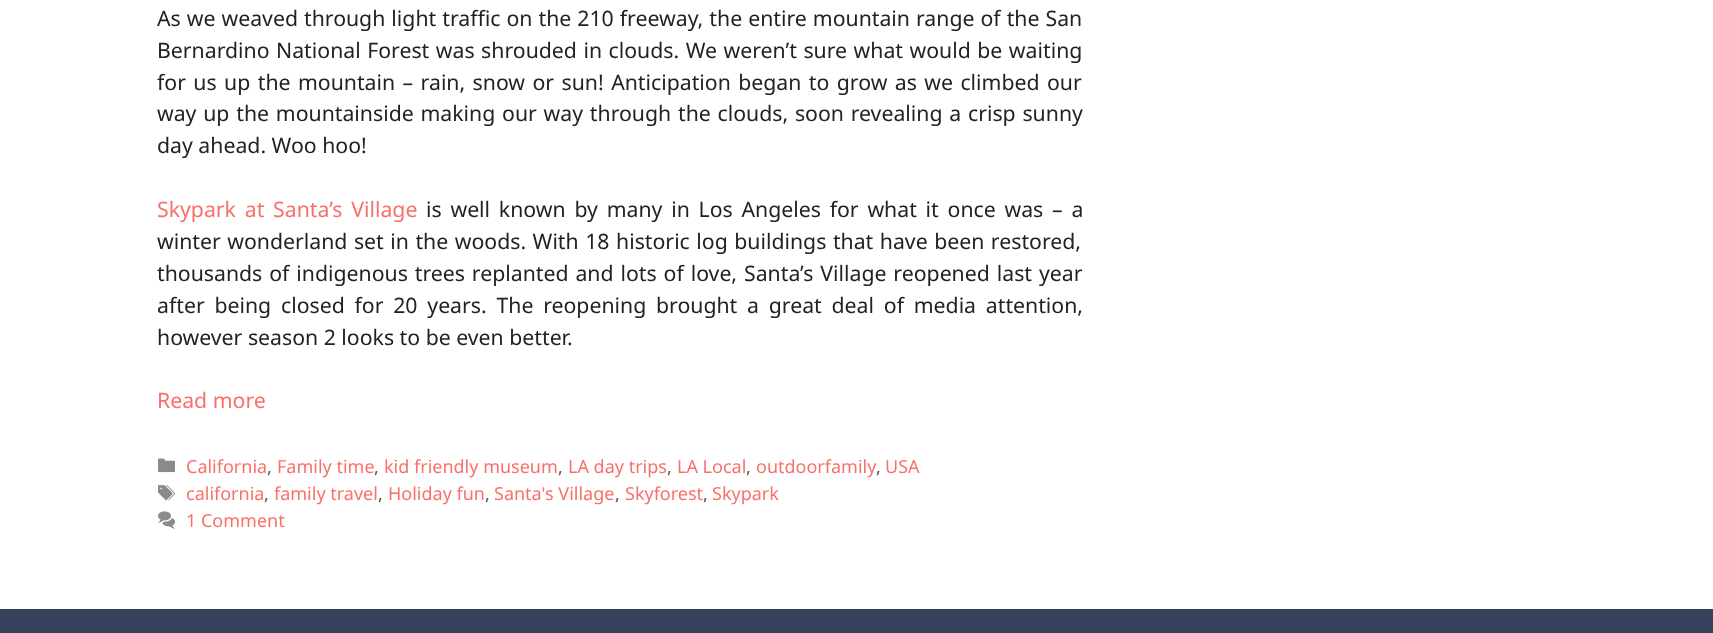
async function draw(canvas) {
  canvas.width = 1713
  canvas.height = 633
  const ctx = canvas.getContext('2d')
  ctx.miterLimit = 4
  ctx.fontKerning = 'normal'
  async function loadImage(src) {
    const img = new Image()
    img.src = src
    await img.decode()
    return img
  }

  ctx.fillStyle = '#fff'
  ctx.fillRect(0, 0, 1713, 633)
  ctx.wordSpacing = '0.5px'
  ctx.font = '21.25px Noto Sans'
  ctx.fillStyle = '#222'
  ctx.fillText('As we weaved through light traffic on the 210 freeway, the entire mountain range of the San', 157, 26)
  ctx.wordSpacing = '1px'
  ctx.fillText('Bernardino National Forest was shrouded in clouds. We weren’t sure what would be waiting', 157, 58)
  ctx.wordSpacing = '1.9px'
  ctx.fillText('for us up the mountain – rain, snow or sun! Anticipation began to grow as we climbed our', 157, 90)
  ctx.wordSpacing = '1.25px'
  ctx.fillText('way up the mountainside making our way through the clouds, soon revealing a crisp sunny', 157, 121)
  ctx.wordSpacing = '0px'
  ctx.fillText('day ahead. Woo hoo!', 157, 153)
  ctx.wordSpacing = '3.25px'
  ctx.fillStyle = '#f97069'
  ctx.fillText('Skypark at Santa’s Village', 157, 217)
  ctx.fillStyle = '#222'
  ctx.fillText('is well known by many in Los Angeles for what it once was – a', 426, 217)
  ctx.wordSpacing = '1px'
  ctx.fillText('winter wonderland set in the woods. With 18 historic log buildings that have been restored,', 157, 249)
  ctx.wordSpacing = '1.4px'
  ctx.fillText('thousands of indigenous trees replanted and lots of love, Santa’s Village reopened last year', 157, 281)
  ctx.wordSpacing = '4.25px'
  ctx.fillText('after being closed for 20 years. The reopening brought a great deal of media attention,', 157, 313)
  ctx.wordSpacing = '0px'
  ctx.fillText('however season 2 looks to be even better.', 157, 345)
  ctx.fillStyle = '#f97069'
  ctx.fillText('Read more', 157, 408)
  ctx.drawImage(await loadImage('image0.png'), 158, 458, 17, 15)
  ctx.font = '18px Noto Sans'
  ctx.fillText('California', 186, 473)
  ctx.fillStyle = '#595959'
  ctx.fillText(',', 267, 473)
  ctx.fillStyle = '#f97069'
  ctx.fillText('Family time', 277, 473)
  ctx.fillStyle = '#595959'
  ctx.fillText(',', 374, 473)
  ctx.fillStyle = '#f97069'
  ctx.fillText('kid friendly museum', 384, 473)
  ctx.fillStyle = '#595959'
  ctx.fillText(',', 558, 473)
  ctx.fillStyle = '#f97069'
  ctx.fillText('LA day trips', 568, 473)
  ctx.fillStyle = '#595959'
  ctx.fillText(',', 667, 473)
  ctx.fillStyle = '#f97069'
  ctx.fillText('LA Local', 677, 473)
  ctx.fillStyle = '#595959'
  ctx.fillText(',', 746, 473)
  ctx.fillStyle = '#f97069'
  ctx.fillText('outdoorfamily', 756, 473)
  ctx.fillStyle = '#595959'
  ctx.fillText(',', 876, 473)
  ctx.fillStyle = '#f97069'
  ctx.fillText('USA', 885, 473)
  ctx.drawImage(await loadImage('image1.png'), 158, 485, 17, 16)
  ctx.fillText('california', 186, 500)
  ctx.fillStyle = '#595959'
  ctx.fillText(',', 264, 500)
  ctx.fillStyle = '#f97069'
  ctx.fillText('family travel', 274, 500)
  ctx.fillStyle = '#595959'
  ctx.fillText(',', 378, 500)
  ctx.fillStyle = '#f97069'
  ctx.fillText('Holiday fun', 388, 500)
  ctx.fillStyle = '#595959'
  ctx.fillText(',', 485, 500)
  ctx.fillStyle = '#f97069'
  ctx.fillText('Santa\'s Village', 494, 500)
  ctx.fillStyle = '#595959'
  ctx.fillText(',', 615, 500)
  ctx.fillStyle = '#f97069'
  ctx.fillText('Skyforest', 625, 500)
  ctx.fillStyle = '#595959'
  ctx.fillText(',', 703, 500)
  ctx.fillStyle = '#f97069'
  ctx.fillText('Skypark', 712, 500)
  ctx.drawImage(await loadImage('image2.png'), 158, 511, 17, 18)
  ctx.fillText('1 Comment', 186, 527)
  ctx.fillStyle = '#36415b'
  ctx.fillRect(0, 609, 1713, 24)
}

draw(document.querySelector('canvas'))
